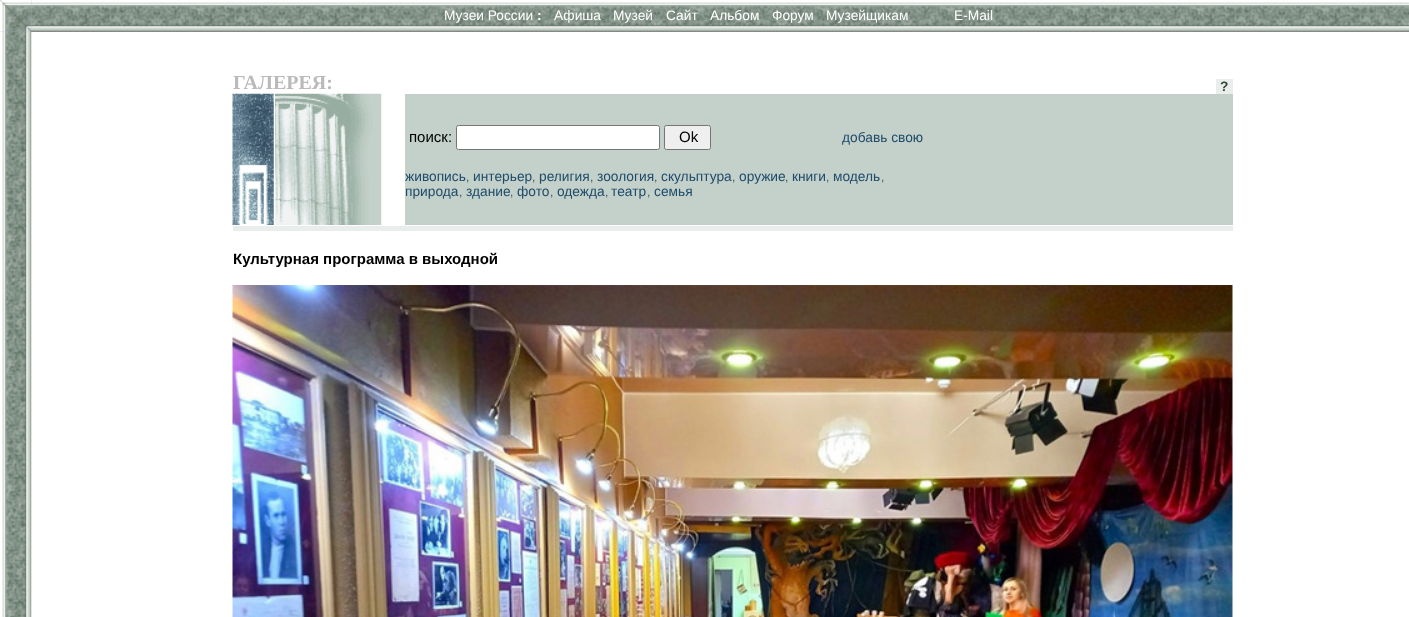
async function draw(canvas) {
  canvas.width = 1409
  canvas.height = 617
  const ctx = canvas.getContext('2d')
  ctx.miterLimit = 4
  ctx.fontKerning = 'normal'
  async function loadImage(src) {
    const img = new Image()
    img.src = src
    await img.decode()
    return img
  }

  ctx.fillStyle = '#fff'
  ctx.fillRect(0, 0, 1409, 617)
  ctx.drawImage(await loadImage('image0.png'), 2, 0, 30, 617)
  ctx.drawImage(await loadImage('image1.png'), 0, 0, 32, 32)
  ctx.drawImage(await loadImage('image2.png'), 31, 0, 1378, 31)
  ctx.font = '13.75px Liberation Sans'
  ctx.fillText('Музеи России', 444, 20)
  ctx.font = 'bold 13.75px Liberation Sans'
  ctx.fillText(':', 537, 20)
  ctx.font = '13.75px Liberation Sans'
  ctx.fillText('Афиша', 554, 20)
  ctx.fillText('Музей', 613, 20)
  ctx.fillText('Сайт', 666, 20)
  ctx.fillText('Альбом', 710, 20)
  ctx.fillText('Форум', 772, 20)
  ctx.fillText('Музейщикам', 826, 20)
  ctx.fillText('E-Mail', 954, 20)
  ctx.fillStyle = '#888'
  ctx.fillRect(31, 31, 1378, 1)
  ctx.font = 'bold 20px Liberation Serif'
  ctx.fillStyle = '#bababa'
  ctx.fillText('ГАЛЕРЕЯ:', 233, 89)
  ctx.fillStyle = '#e9edeb'
  ctx.fillRect(1216, 79, 17, 15)
  ctx.font = 'bold 13.75px Liberation Sans'
  ctx.fillStyle = '#2a4931'
  ctx.fillText('?', 1220, 91)
  ctx.drawImage(await loadImage('image3.png'), 232, 93, 42, 132)
  ctx.drawImage(await loadImage('image4.png'), 275, 93, 107, 132)
  ctx.fillStyle = '#c4d0ca'
  ctx.fillRect(405, 94, 828, 131)
  ctx.font = '15px Liberation Sans'
  ctx.fillStyle = '#000'
  ctx.fillText('поиск:', 409, 142)
  ctx.fillStyle = '#fff'
  ctx.beginPath()
  ctx.roundRect(456.5, 125.5, 203, 24, 2)
  ctx.fill()
  ctx.strokeStyle = '#767676'
  ctx.stroke()
  ctx.fillStyle = '#efefef'
  ctx.beginPath()
  ctx.roundRect(664.5, 125.5, 46, 24, 2)
  ctx.fill()
  ctx.stroke()
  ctx.fillStyle = '#000'
  ctx.fillText('Ok', 679, 142)
  ctx.font = '13.75px Liberation Sans'
  ctx.fillStyle = '#1e4c6a'
  ctx.fillText('добавь свою', 842, 142)
  ctx.fillText('живопись', 405, 181)
  ctx.font = '12px Liberation Sans'
  ctx.fillStyle = '#39595c'
  ctx.fillText(',', 466, 181)
  ctx.font = '13.75px Liberation Sans'
  ctx.fillStyle = '#1e4c6a'
  ctx.fillText('интерьер', 473, 181)
  ctx.font = '12px Liberation Sans'
  ctx.fillStyle = '#39595c'
  ctx.fillText(',', 532, 181)
  ctx.font = '13.75px Liberation Sans'
  ctx.fillStyle = '#1e4c6a'
  ctx.fillText('религия', 539, 181)
  ctx.font = '12px Liberation Sans'
  ctx.fillStyle = '#39595c'
  ctx.fillText(',', 590, 181)
  ctx.font = '13.75px Liberation Sans'
  ctx.fillStyle = '#1e4c6a'
  ctx.fillText('зоология', 597, 181)
  ctx.font = '12px Liberation Sans'
  ctx.fillStyle = '#39595c'
  ctx.fillText(',', 654, 181)
  ctx.font = '13.75px Liberation Sans'
  ctx.fillStyle = '#1e4c6a'
  ctx.fillText('скульптура', 661, 181)
  ctx.font = '12px Liberation Sans'
  ctx.fillStyle = '#39595c'
  ctx.fillText(',', 732, 181)
  ctx.font = '13.75px Liberation Sans'
  ctx.fillStyle = '#1e4c6a'
  ctx.fillText('оружие', 739, 181)
  ctx.font = '12px Liberation Sans'
  ctx.fillStyle = '#39595c'
  ctx.fillText(',', 785, 181)
  ctx.font = '13.75px Liberation Sans'
  ctx.fillStyle = '#1e4c6a'
  ctx.fillText('книги', 792, 181)
  ctx.font = '12px Liberation Sans'
  ctx.fillStyle = '#39595c'
  ctx.fillText(',', 826, 181)
  ctx.font = '13.75px Liberation Sans'
  ctx.fillStyle = '#1e4c6a'
  ctx.fillText('модель', 833, 181)
  ctx.font = '12px Liberation Sans'
  ctx.fillStyle = '#39595c'
  ctx.fillText(',', 881, 181)
  ctx.font = '13.75px Liberation Sans'
  ctx.fillStyle = '#1e4c6a'
  ctx.fillText('природа', 405, 196)
  ctx.font = '12px Liberation Sans'
  ctx.fillStyle = '#39595c'
  ctx.fillText(',', 459, 196)
  ctx.font = '13.75px Liberation Sans'
  ctx.fillStyle = '#1e4c6a'
  ctx.fillText('здание', 466, 196)
  ctx.font = '12px Liberation Sans'
  ctx.fillStyle = '#39595c'
  ctx.fillText(',', 510, 196)
  ctx.font = '13.75px Liberation Sans'
  ctx.fillStyle = '#1e4c6a'
  ctx.fillText('фото', 517, 196)
  ctx.font = '12px Liberation Sans'
  ctx.fillStyle = '#39595c'
  ctx.fillText(',', 550, 196)
  ctx.font = '13.75px Liberation Sans'
  ctx.fillStyle = '#1e4c6a'
  ctx.fillText('одежда', 557, 196)
  ctx.font = '12px Liberation Sans'
  ctx.fillStyle = '#39595c'
  ctx.fillText(',', 605, 196)
  ctx.font = '13.75px Liberation Sans'
  ctx.fillStyle = '#1e4c6a'
  ctx.fillText('театр', 611, 196)
  ctx.font = '12px Liberation Sans'
  ctx.fillStyle = '#39595c'
  ctx.fillText(',', 647, 196)
  ctx.font = '13.75px Liberation Sans'
  ctx.fillStyle = '#1e4c6a'
  ctx.fillText('семья', 654, 196)
  ctx.fillStyle = '#e9edeb'
  ctx.fillRect(233, 226, 1000, 5)
  ctx.font = 'bold 15px Liberation Sans'
  ctx.fillStyle = '#000'
  ctx.fillText('Культурная программа в выходной', 233, 264)
  ctx.drawImage(await loadImage('image5.png'), 232, 285, 1001, 332)
}

draw(document.querySelector('canvas'))
